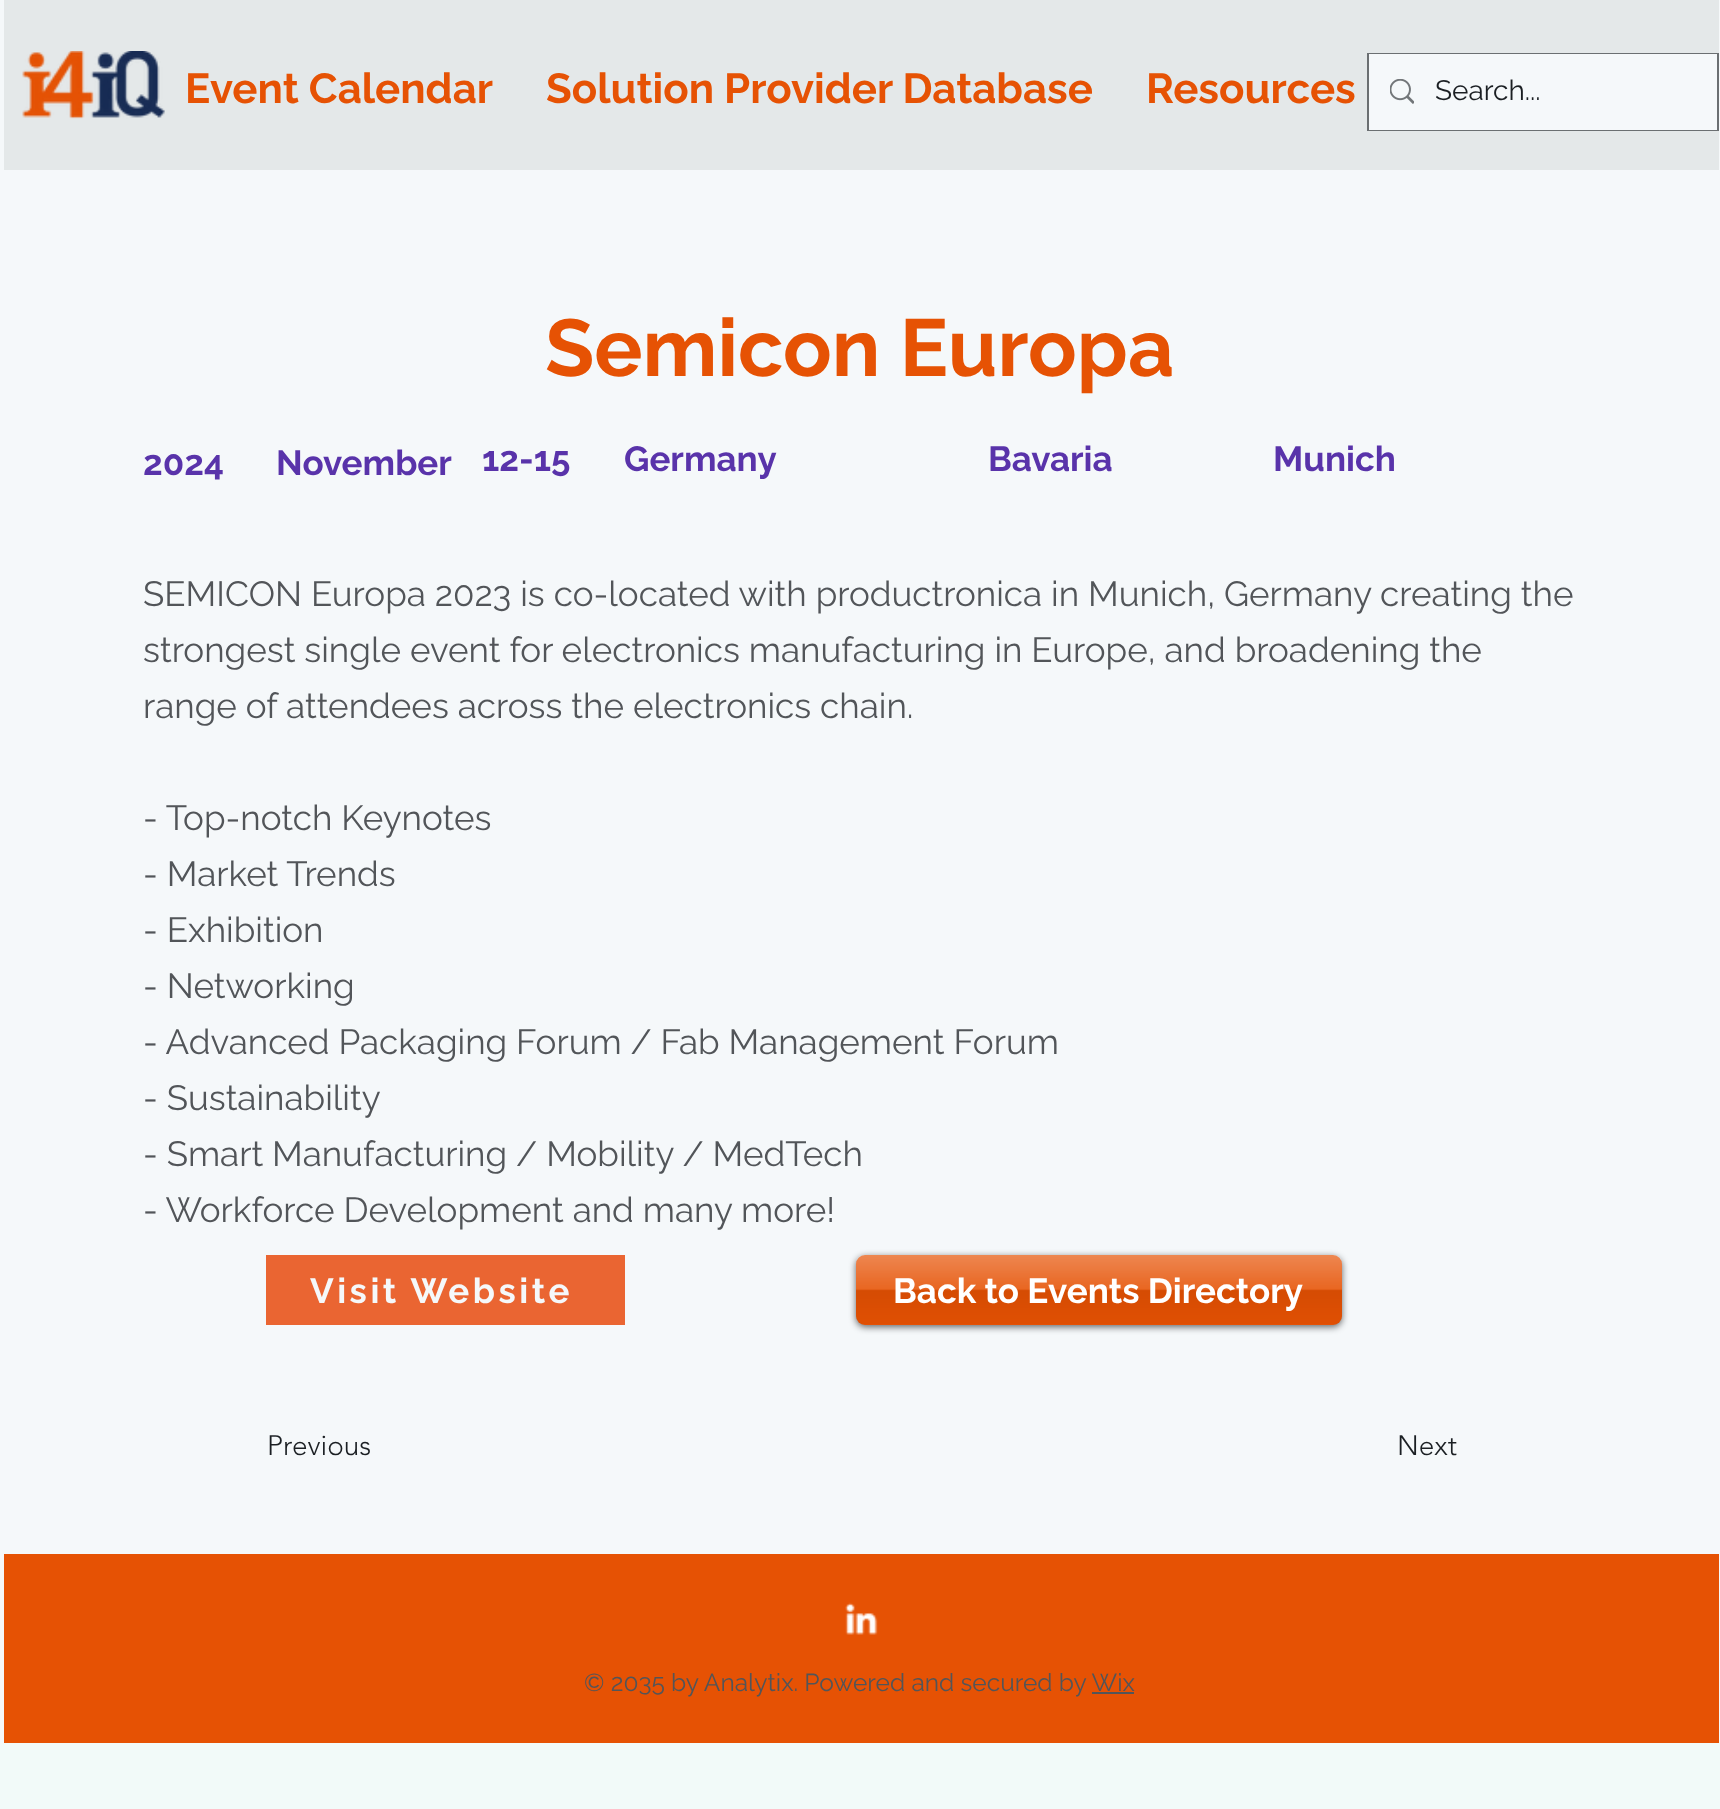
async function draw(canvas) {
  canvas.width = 1720
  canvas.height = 1809
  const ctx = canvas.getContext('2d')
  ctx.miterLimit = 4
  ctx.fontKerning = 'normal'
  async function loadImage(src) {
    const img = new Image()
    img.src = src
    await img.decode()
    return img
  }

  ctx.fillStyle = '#f2faf9'
  ctx.fillRect(0, 0, 1720, 1809)
  ctx.fillStyle = '#f5f8fa'
  ctx.fillRect(0, 0, 1720, 1743)
  ctx.fillStyle = '#e4e8e9'
  ctx.fillRect(4, 0, 1715, 170)
  ctx.drawImage(await loadImage('image0.png'), 22, 51, 143, 68)
  ctx.font = 'bold 42px Raleway'
  ctx.fillStyle = '#e65204'
  ctx.fillText('Event Calendar', 185, 103)
  ctx.fillText('Solution Provider Database', 546, 103)
  ctx.fillText('Resources', 1146, 103)
  ctx.strokeStyle = '#6b6f72'
  ctx.lineWidth = 2
  ctx.strokeRect(1368, 54, 350, 76)
  ctx.fillStyle = '#f5f8fa'
  ctx.fillRect(1369, 54, 348, 76)
  ctx.drawImage(await loadImage('image1.png'), 1390, 79, 24, 25)
  ctx.font = '28px Raleway'
  ctx.fillStyle = '#1b1f23'
  ctx.fillText('Search...', 1435, 100)
  ctx.font = 'bold 80.5px Raleway'
  ctx.fillStyle = '#e65204'
  ctx.fillText('Semicon Europa', 545, 376)
  ctx.font = 'bold 35px Raleway'
  ctx.fillStyle = '#5933aa'
  ctx.fillText('2024', 143, 475)
  ctx.fillText('November', 276, 475)
  ctx.fillText('12-15', 482, 471)
  ctx.fillText('Germany', 624, 471)
  ctx.fillText('Bavaria', 988, 471)
  ctx.fillText('Munich', 1273, 471)
  ctx.font = '35px Raleway'
  ctx.fillStyle = '#525559'
  ctx.fillText('SEMICON Europa 2023 is co-located with productronica in Munich, Germany creating the', 143, 606)
  ctx.fillText('strongest single event for electronics manufacturing in Europe, and broadening the', 143, 662)
  ctx.fillText('range of attendees across the electronics chain.', 143, 718)
  ctx.fillText('- Top-notch Keynotes', 143, 830)
  ctx.fillText('- Market Trends', 143, 886)
  ctx.fillText('- Exhibition', 143, 942)
  ctx.fillText('- Networking', 143, 998)
  ctx.fillText('- Advanced Packaging Forum / Fab Management Forum', 143, 1054)
  ctx.fillText('- Sustainability', 143, 1110)
  ctx.fillText('- Smart Manufacturing / Mobility / MedTech', 143, 1166)
  ctx.fillText('- Workforce Development and many more!', 143, 1222)
  ctx.fillStyle = '#ea6532'
  ctx.fillRect(266, 1255, 359, 70)
  ctx.letterSpacing = '3.5px'
  ctx.font = 'bold 35px Raleway'
  ctx.fillStyle = '#f5f8fa'
  ctx.fillText('Visit Website', 310, 1303)
  ctx.fillStyle = '#00000099'
  ctx.filter = 'blur(3.5px)'
  ctx.beginPath()
  ctx.roundRect(856, 1257, 486, 70, 9)
  ctx.fill()
  ctx.filter = 'none'
  ctx.fillStyle = '#e65204'
  ctx.beginPath()
  ctx.roundRect(856, 1255, 486, 70, 9)
  ctx.fill()
  ctx.drawImage(await loadImage('image2.png'), 856, 1255, 486, 69)
  ctx.letterSpacing = '0px'
  ctx.fillStyle = '#fff'
  ctx.fillText('Back to Events Directory', 893, 1303)
  ctx.font = '300 28px "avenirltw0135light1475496"'
  ctx.fillStyle = '#1b1f23'
  ctx.fillText('Previous', 267, 1455)
  ctx.fillText('Next', 1397, 1455)
  ctx.fillStyle = '#e65204'
  ctx.fillRect(4, 1554, 1715, 189)
  ctx.drawImage(await loadImage('image3.png'), 845, 1602, 33, 33)
  ctx.font = '24.5px Raleway'
  ctx.fillStyle = '#525559'
  ctx.fillText('© 2035 by Analytix. Powered and secured by Wix', 584, 1691)
  ctx.fillRect(1092, 1692, 42, 2)
}

draw(document.querySelector('canvas'))
